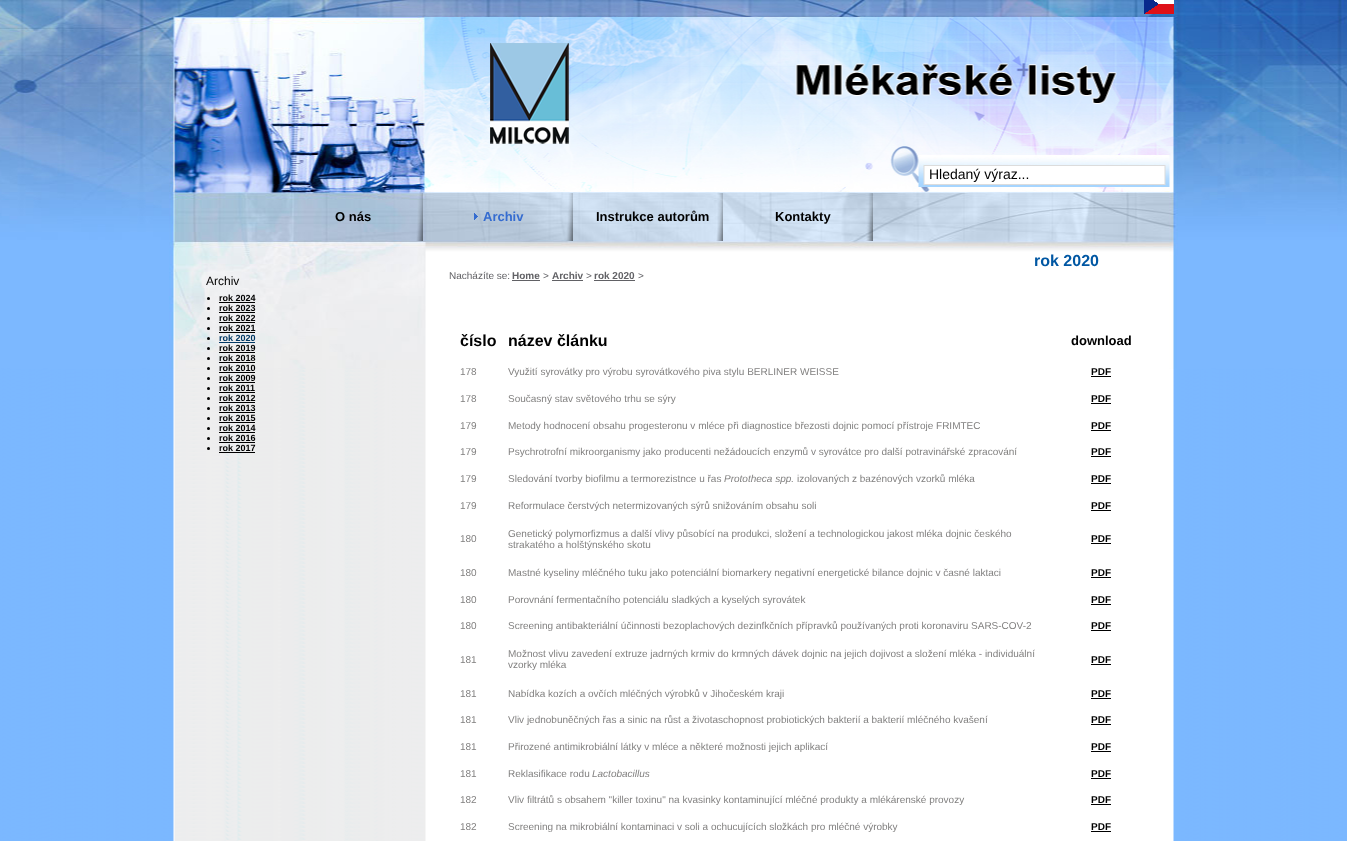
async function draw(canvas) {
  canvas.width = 1347
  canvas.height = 841
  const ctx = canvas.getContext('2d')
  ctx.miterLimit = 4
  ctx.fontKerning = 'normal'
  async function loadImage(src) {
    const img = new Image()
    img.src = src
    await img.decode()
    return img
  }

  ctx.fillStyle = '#fff'
  ctx.fillRect(0, 0, 1347, 841)
  ctx.drawImage(await loadImage('image0.png'), 0, 369, 1347, 472)
  ctx.drawImage(await loadImage('image8.png'), 0, 0, 1347, 369)
  ctx.drawImage(await loadImage('image1.png'), 1144, 0, 30, 14)
  ctx.drawImage(await loadImage('image2.png'), 490, 43, 79, 101)
  ctx.font = '14px Liberation Sans'
  ctx.fillStyle = '#000'
  ctx.fillText('Hledaný výraz...', 929, 179)
  ctx.drawImage(await loadImage('image3.png'), 416, 193, 7, 48)
  ctx.font = 'bold 13px Liberation Sans'
  ctx.fillText('O nás', 335, 221)
  ctx.drawImage(await loadImage('image4.png'), 566, 193, 7, 48)
  ctx.drawImage(await loadImage('image5.png'), 474, 213, 4, 7)
  ctx.fillStyle = '#356cd0'
  ctx.fillText('Archiv', 483, 221)
  ctx.drawImage(await loadImage('image6.png'), 716, 193, 7, 48)
  ctx.fillStyle = '#000'
  ctx.fillText('Instrukce autorům', 596, 221)
  ctx.drawImage(await loadImage('image7.png'), 866, 193, 7, 48)
  ctx.fillText('Kontakty', 775, 221)
  ctx.font = '12px Liberation Sans'
  ctx.fillText('Archiv', 206, 285)
  ctx.beginPath()
  ctx.arc(208.5, 298.5, 1.5, 0, 2 * Math.PI)
  ctx.fill()
  ctx.font = 'bold 9px Liberation Sans'
  ctx.fillText('rok 2024', 219, 301)
  ctx.fillRect(219, 302, 36, 1)
  ctx.beginPath()
  ctx.arc(208.5, 308.5, 1.5, 0, 2 * Math.PI)
  ctx.fill()
  ctx.fillText('rok 2023', 219, 311)
  ctx.fillRect(219, 312, 36, 1)
  ctx.beginPath()
  ctx.arc(208.5, 318.5, 1.5, 0, 2 * Math.PI)
  ctx.fill()
  ctx.fillText('rok 2022', 219, 321)
  ctx.fillRect(219, 322, 36, 1)
  ctx.beginPath()
  ctx.arc(208.5, 328.5, 1.5, 0, 2 * Math.PI)
  ctx.fill()
  ctx.fillText('rok 2021', 219, 331)
  ctx.fillRect(219, 332, 36, 1)
  ctx.beginPath()
  ctx.arc(208.5, 338.5, 1.5, 0, 2 * Math.PI)
  ctx.fill()
  ctx.fillStyle = '#023863'
  ctx.fillText('rok 2020', 219, 341)
  ctx.fillRect(219, 342, 36, 1)
  ctx.fillStyle = '#000'
  ctx.beginPath()
  ctx.arc(208.5, 348.5, 1.5, 0, 2 * Math.PI)
  ctx.fill()
  ctx.fillText('rok 2019', 219, 351)
  ctx.fillRect(219, 352, 36, 1)
  ctx.beginPath()
  ctx.arc(208.5, 358.5, 1.5, 0, 2 * Math.PI)
  ctx.fill()
  ctx.fillText('rok 2018', 219, 361)
  ctx.fillRect(219, 362, 36, 1)
  ctx.beginPath()
  ctx.arc(208.5, 368.5, 1.5, 0, 2 * Math.PI)
  ctx.fill()
  ctx.fillText('rok 2010', 219, 371)
  ctx.fillRect(219, 372, 36, 1)
  ctx.beginPath()
  ctx.arc(208.5, 378.5, 1.5, 0, 2 * Math.PI)
  ctx.fill()
  ctx.fillText('rok 2009', 219, 381)
  ctx.fillRect(219, 382, 36, 1)
  ctx.beginPath()
  ctx.arc(208.5, 388.5, 1.5, 0, 2 * Math.PI)
  ctx.fill()
  ctx.fillText('rok 2011', 219, 391)
  ctx.fillRect(219, 392, 36, 1)
  ctx.beginPath()
  ctx.arc(208.5, 398.5, 1.5, 0, 2 * Math.PI)
  ctx.fill()
  ctx.fillText('rok 2012', 219, 401)
  ctx.fillRect(219, 402, 36, 1)
  ctx.beginPath()
  ctx.arc(208.5, 408.5, 1.5, 0, 2 * Math.PI)
  ctx.fill()
  ctx.fillText('rok 2013', 219, 411)
  ctx.fillRect(219, 412, 36, 1)
  ctx.beginPath()
  ctx.arc(208.5, 418.5, 1.5, 0, 2 * Math.PI)
  ctx.fill()
  ctx.fillText('rok 2015', 219, 421)
  ctx.fillRect(219, 422, 36, 1)
  ctx.beginPath()
  ctx.arc(208.5, 428.5, 1.5, 0, 2 * Math.PI)
  ctx.fill()
  ctx.fillText('rok 2014', 219, 431)
  ctx.fillRect(219, 432, 36, 1)
  ctx.beginPath()
  ctx.arc(208.5, 438.5, 1.5, 0, 2 * Math.PI)
  ctx.fill()
  ctx.fillText('rok 2016', 219, 441)
  ctx.fillRect(219, 442, 36, 1)
  ctx.beginPath()
  ctx.arc(208.5, 448.5, 1.5, 0, 2 * Math.PI)
  ctx.fill()
  ctx.fillText('rok 2017', 219, 451)
  ctx.fillRect(219, 452, 36, 1)
  ctx.font = 'bold 16px Liberation Sans'
  ctx.fillStyle = '#0057a3'
  ctx.fillText('rok 2020', 1034, 266)
  ctx.font = '10px Liberation Sans'
  ctx.fillStyle = '#616165'
  ctx.fillText('Nacházíte se:', 449, 279)
  ctx.font = 'bold 10px Liberation Sans'
  ctx.fillText('Home', 512, 279)
  ctx.fillRect(512, 280, 28, 1)
  ctx.font = '10px Liberation Sans'
  ctx.fillText('>', 543, 279)
  ctx.font = 'bold 10px Liberation Sans'
  ctx.fillText('Archiv', 552, 279)
  ctx.fillRect(552, 280, 31, 1)
  ctx.font = '10px Liberation Sans'
  ctx.fillText('>', 586, 279)
  ctx.font = 'bold 10px Liberation Sans'
  ctx.fillText('rok 2020', 594, 279)
  ctx.fillRect(594, 280, 41, 1)
  ctx.font = '10px Liberation Sans'
  ctx.fillText('>', 638, 279)
  ctx.font = 'bold 16px Liberation Sans'
  ctx.fillStyle = '#000'
  ctx.fillText('číslo', 460, 346)
  ctx.fillText('název článku', 508, 346)
  ctx.font = 'bold 13px Liberation Sans'
  ctx.fillText('download', 1071, 345)
  ctx.font = '10px Liberation Sans'
  ctx.fillStyle = '#828180'
  ctx.fillText('178', 460, 375)
  ctx.fillText('Využití syrovátky pro výrobu syrovátkového piva stylu BERLINER WEISSE', 508, 375)
  ctx.font = 'bold 10px Liberation Sans'
  ctx.fillStyle = '#000'
  ctx.fillText('PDF', 1091, 375)
  ctx.fillRect(1091, 376, 20, 1)
  ctx.font = '10px Liberation Sans'
  ctx.fillStyle = '#828180'
  ctx.fillText('178', 460, 402)
  ctx.fillText('Současný stav světového trhu se sýry', 508, 402)
  ctx.font = 'bold 10px Liberation Sans'
  ctx.fillStyle = '#000'
  ctx.fillText('PDF', 1091, 402)
  ctx.fillRect(1091, 403, 20, 1)
  ctx.font = '10px Liberation Sans'
  ctx.fillStyle = '#828180'
  ctx.fillText('179', 460, 429)
  ctx.fillText('Metody hodnocení obsahu progesteronu v mléce při diagnostice březosti dojnic pomocí přístroje FRIMTEC', 508, 429)
  ctx.font = 'bold 10px Liberation Sans'
  ctx.fillStyle = '#000'
  ctx.fillText('PDF', 1091, 429)
  ctx.fillRect(1091, 430, 20, 1)
  ctx.font = '10px Liberation Sans'
  ctx.fillStyle = '#828180'
  ctx.fillText('179', 460, 455)
  ctx.fillText('Psychrotrofní mikroorganismy jako producenti nežádoucích enzymů v syrovátce pro další potravinářské zpracování', 508, 455)
  ctx.font = 'bold 10px Liberation Sans'
  ctx.fillStyle = '#000'
  ctx.fillText('PDF', 1091, 455)
  ctx.fillRect(1091, 456, 20, 1)
  ctx.font = '10px Liberation Sans'
  ctx.fillStyle = '#828180'
  ctx.fillText('179', 460, 482)
  ctx.fillText('Sledování tvorby biofilmu a termorezistnce u řas', 508, 482)
  ctx.font = 'italic 10px Liberation Sans'
  ctx.fillText('Prototheca spp.', 724, 482)
  ctx.font = '10px Liberation Sans'
  ctx.fillText('izolovaných z bazénových vzorků mléka', 797, 482)
  ctx.font = 'bold 10px Liberation Sans'
  ctx.fillStyle = '#000'
  ctx.fillText('PDF', 1091, 482)
  ctx.fillRect(1091, 483, 20, 1)
  ctx.font = '10px Liberation Sans'
  ctx.fillStyle = '#828180'
  ctx.fillText('179', 460, 509)
  ctx.fillText('Reformulace čerstvých netermizovaných sýrů snižováním obsahu soli', 508, 509)
  ctx.font = 'bold 10px Liberation Sans'
  ctx.fillStyle = '#000'
  ctx.fillText('PDF', 1091, 509)
  ctx.fillRect(1091, 510, 20, 1)
  ctx.font = '10px Liberation Sans'
  ctx.fillStyle = '#828180'
  ctx.fillText('180', 460, 542)
  ctx.fillText('Genetický polymorfizmus a další vlivy působící na produkci, složení a technologickou jakost mléka dojnic českého', 508, 537)
  ctx.fillText('strakatého a holštýnského skotu', 508, 548)
  ctx.font = 'bold 10px Liberation Sans'
  ctx.fillStyle = '#000'
  ctx.fillText('PDF', 1091, 542)
  ctx.fillRect(1091, 543, 20, 1)
  ctx.font = '10px Liberation Sans'
  ctx.fillStyle = '#828180'
  ctx.fillText('180', 460, 576)
  ctx.fillText('Mastné kyseliny mléčného tuku jako potenciální biomarkery negativní energetické bilance dojnic v časné laktaci', 508, 576)
  ctx.font = 'bold 10px Liberation Sans'
  ctx.fillStyle = '#000'
  ctx.fillText('PDF', 1091, 576)
  ctx.fillRect(1091, 577, 20, 1)
  ctx.font = '10px Liberation Sans'
  ctx.fillStyle = '#828180'
  ctx.fillText('180', 460, 603)
  ctx.fillText('Porovnání fermentačního potenciálu sladkých a kyselých syrovátek', 508, 603)
  ctx.font = 'bold 10px Liberation Sans'
  ctx.fillStyle = '#000'
  ctx.fillText('PDF', 1091, 603)
  ctx.fillRect(1091, 604, 20, 1)
  ctx.font = '10px Liberation Sans'
  ctx.fillStyle = '#828180'
  ctx.fillText('180', 460, 629)
  ctx.fillText('Screening antibakteriální účinnosti bezoplachových dezinfkčních přípravků používaných proti koronaviru SARS-COV-2', 508, 629)
  ctx.font = 'bold 10px Liberation Sans'
  ctx.fillStyle = '#000'
  ctx.fillText('PDF', 1091, 629)
  ctx.fillRect(1091, 630, 20, 1)
  ctx.font = '10px Liberation Sans'
  ctx.fillStyle = '#828180'
  ctx.fillText('181', 460, 663)
  ctx.fillText('Možnost vlivu zavedení extruze jadrných krmiv do krmných dávek dojnic na jejich dojivost a složení mléka - individuální', 508, 657)
  ctx.fillText('vzorky mléka', 508, 668)
  ctx.font = 'bold 10px Liberation Sans'
  ctx.fillStyle = '#000'
  ctx.fillText('PDF', 1091, 663)
  ctx.fillRect(1091, 664, 20, 1)
  ctx.font = '10px Liberation Sans'
  ctx.fillStyle = '#828180'
  ctx.fillText('181', 460, 697)
  ctx.fillText('Nabídka kozích a ovčích mléčných výrobků v Jihočeském kraji', 508, 697)
  ctx.font = 'bold 10px Liberation Sans'
  ctx.fillStyle = '#000'
  ctx.fillText('PDF', 1091, 697)
  ctx.fillRect(1091, 698, 20, 1)
  ctx.font = '10px Liberation Sans'
  ctx.fillStyle = '#828180'
  ctx.fillText('181', 460, 723)
  ctx.fillText('Vliv jednobuněčných řas a sinic na růst a životaschopnost probiotických bakterií a bakterií mléčného kvašení', 508, 723)
  ctx.font = 'bold 10px Liberation Sans'
  ctx.fillStyle = '#000'
  ctx.fillText('PDF', 1091, 723)
  ctx.fillRect(1091, 724, 20, 1)
  ctx.font = '10px Liberation Sans'
  ctx.fillStyle = '#828180'
  ctx.fillText('181', 460, 750)
  ctx.fillText('Přirozené antimikrobiální látky v mléce a některé možnosti jejich aplikací', 508, 750)
  ctx.font = 'bold 10px Liberation Sans'
  ctx.fillStyle = '#000'
  ctx.fillText('PDF', 1091, 750)
  ctx.fillRect(1091, 751, 20, 1)
  ctx.font = '10px Liberation Sans'
  ctx.fillStyle = '#828180'
  ctx.fillText('181', 460, 777)
  ctx.fillText('Reklasifikace rodu', 508, 777)
  ctx.font = 'italic 10px Liberation Sans'
  ctx.fillText('Lactobacillus', 592, 777)
  ctx.font = 'bold 10px Liberation Sans'
  ctx.fillStyle = '#000'
  ctx.fillText('PDF', 1091, 777)
  ctx.fillRect(1091, 778, 20, 1)
  ctx.font = '10px Liberation Sans'
  ctx.fillStyle = '#828180'
  ctx.fillText('182', 460, 803)
  ctx.fillText('Vliv filtrátů s obsahem "killer toxinu" na kvasinky kontaminující mléčné produkty a mlékárenské provozy', 508, 803)
  ctx.font = 'bold 10px Liberation Sans'
  ctx.fillStyle = '#000'
  ctx.fillText('PDF', 1091, 803)
  ctx.fillRect(1091, 804, 20, 1)
  ctx.font = '10px Liberation Sans'
  ctx.fillStyle = '#828180'
  ctx.fillText('182', 460, 830)
  ctx.fillText('Screening na mikrobiální kontaminaci v soli a ochucujících složkách pro mléčné výrobky', 508, 830)
  ctx.font = 'bold 10px Liberation Sans'
  ctx.fillStyle = '#000'
  ctx.fillText('PDF', 1091, 830)
  ctx.fillRect(1091, 831, 20, 1)
}

draw(document.querySelector('canvas'))
